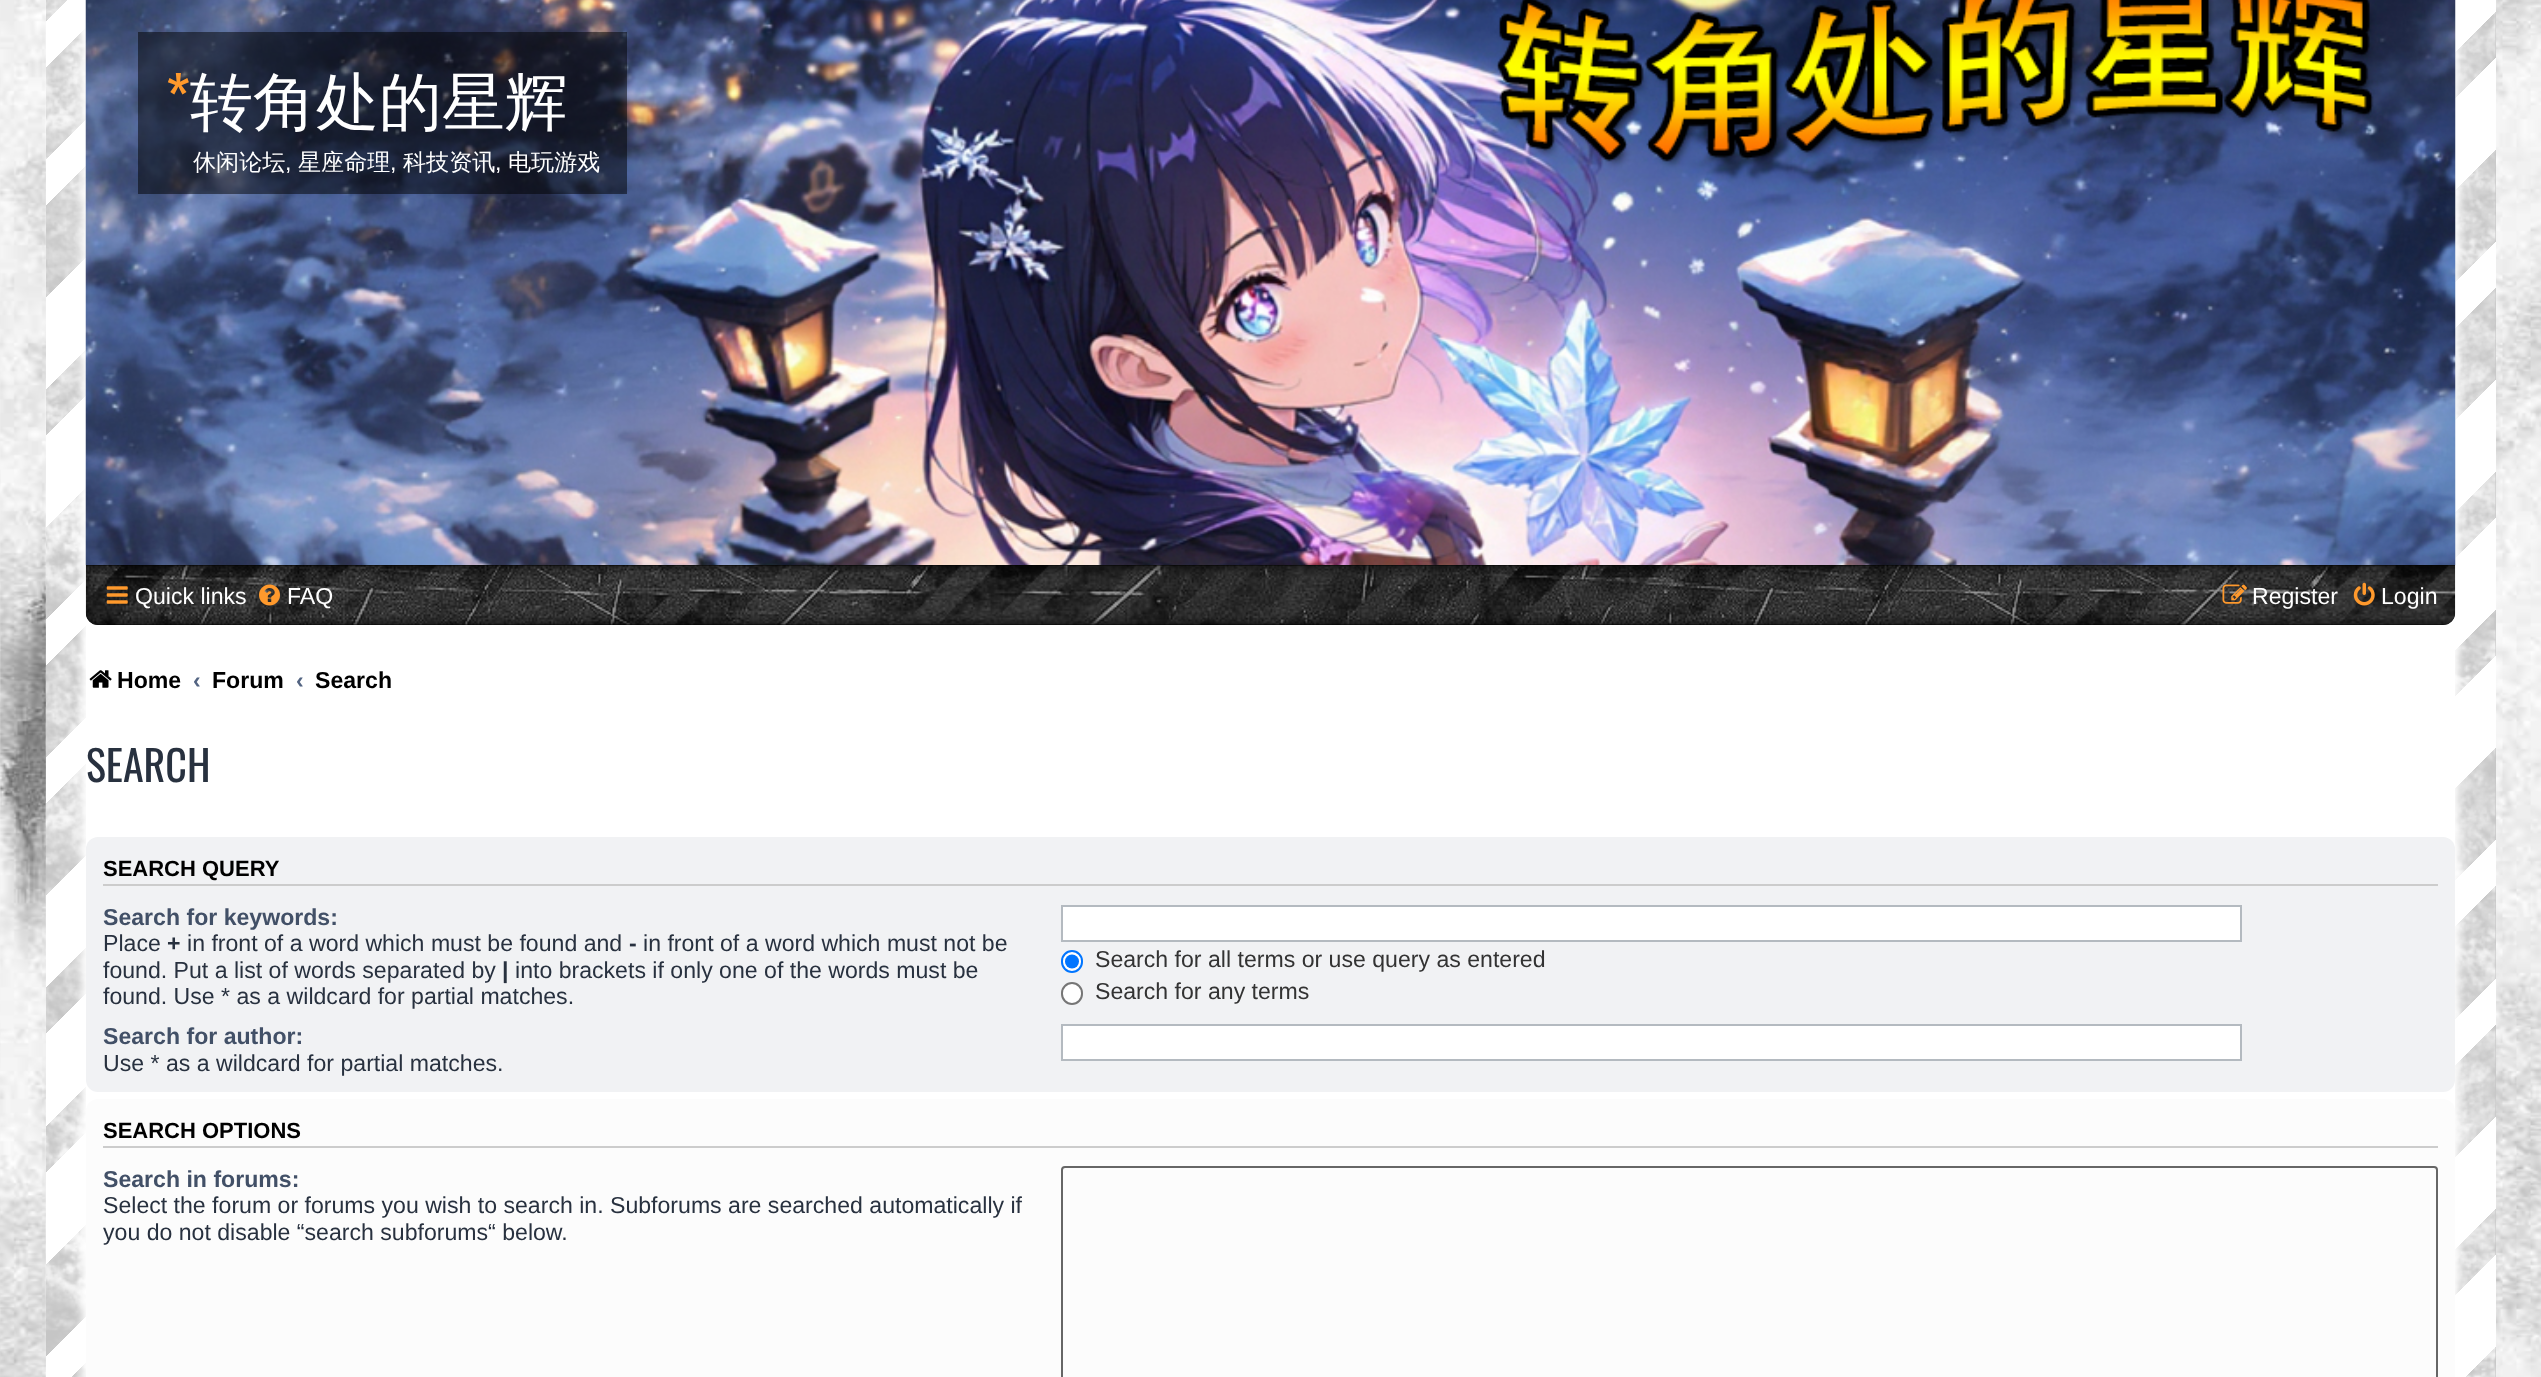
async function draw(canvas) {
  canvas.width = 2541
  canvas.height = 1377
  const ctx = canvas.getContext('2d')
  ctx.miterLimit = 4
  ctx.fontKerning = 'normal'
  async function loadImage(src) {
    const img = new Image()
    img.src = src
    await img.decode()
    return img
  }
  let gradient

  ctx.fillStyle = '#fff'
  ctx.fillRect(0, 0, 2541, 1377)
  ctx.drawImage(await loadImage('image0.png'), 0, 0, 2541, 1377)
  gradient = ctx.createLinearGradient(120, -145, 2422, 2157)
  gradient.addColorStop(0, '#c5c5c5')
  gradient.addColorStop(0.02, '#c5c5c5')
  gradient.addColorStop(0.02, '#fff')
  gradient.addColorStop(0.03, '#fff')
  gradient.addColorStop(0.03, '#c5c5c5')
  gradient.addColorStop(0.05, '#c5c5c5')
  gradient.addColorStop(0.05, '#fff')
  gradient.addColorStop(0.06, '#fff')
  gradient.addColorStop(0.06, '#c5c5c5')
  gradient.addColorStop(0.08, '#c5c5c5')
  gradient.addColorStop(0.08, '#fff')
  gradient.addColorStop(0.1, '#fff')
  gradient.addColorStop(0.1, '#c5c5c5')
  gradient.addColorStop(0.11, '#c5c5c5')
  gradient.addColorStop(0.11, '#fff')
  gradient.addColorStop(0.13, '#fff')
  gradient.addColorStop(0.13, '#c5c5c5')
  gradient.addColorStop(0.15, '#c5c5c5')
  gradient.addColorStop(0.15, '#fff')
  gradient.addColorStop(0.16, '#fff')
  gradient.addColorStop(0.16, '#c5c5c5')
  gradient.addColorStop(0.18, '#c5c5c5')
  gradient.addColorStop(0.18, '#fff')
  gradient.addColorStop(0.19, '#fff')
  gradient.addColorStop(0.19, '#c5c5c5')
  gradient.addColorStop(0.21, '#c5c5c5')
  gradient.addColorStop(0.21, '#fff')
  gradient.addColorStop(0.23, '#fff')
  gradient.addColorStop(0.23, '#c5c5c5')
  gradient.addColorStop(0.24, '#c5c5c5')
  gradient.addColorStop(0.24, '#fff')
  gradient.addColorStop(0.26, '#fff')
  gradient.addColorStop(0.26, '#c5c5c5')
  gradient.addColorStop(0.27, '#c5c5c5')
  gradient.addColorStop(0.27, '#fff')
  gradient.addColorStop(0.29, '#fff')
  gradient.addColorStop(0.29, '#c5c5c5')
  gradient.addColorStop(0.31, '#c5c5c5')
  gradient.addColorStop(0.31, '#fff')
  gradient.addColorStop(0.32, '#fff')
  gradient.addColorStop(0.32, '#c5c5c5')
  gradient.addColorStop(0.34, '#c5c5c5')
  gradient.addColorStop(0.34, '#fff')
  gradient.addColorStop(0.35, '#fff')
  gradient.addColorStop(0.35, '#c5c5c5')
  gradient.addColorStop(0.37, '#c5c5c5')
  gradient.addColorStop(0.37, '#fff')
  gradient.addColorStop(0.39, '#fff')
  gradient.addColorStop(0.39, '#c5c5c5')
  gradient.addColorStop(0.4, '#c5c5c5')
  gradient.addColorStop(0.4, '#fff')
  gradient.addColorStop(0.42, '#fff')
  gradient.addColorStop(0.42, '#c5c5c5')
  gradient.addColorStop(0.44, '#c5c5c5')
  gradient.addColorStop(0.44, '#fff')
  gradient.addColorStop(0.45, '#fff')
  gradient.addColorStop(0.45, '#c5c5c5')
  gradient.addColorStop(0.47, '#c5c5c5')
  gradient.addColorStop(0.47, '#fff')
  gradient.addColorStop(0.48, '#fff')
  gradient.addColorStop(0.48, '#c5c5c5')
  gradient.addColorStop(0.5, '#c5c5c5')
  gradient.addColorStop(0.5, '#fff')
  gradient.addColorStop(0.52, '#fff')
  gradient.addColorStop(0.52, '#c5c5c5')
  gradient.addColorStop(0.53, '#c5c5c5')
  gradient.addColorStop(0.53, '#fff')
  gradient.addColorStop(0.55, '#fff')
  gradient.addColorStop(0.55, '#c5c5c5')
  gradient.addColorStop(0.56, '#c5c5c5')
  gradient.addColorStop(0.56, '#fff')
  gradient.addColorStop(0.58, '#fff')
  gradient.addColorStop(0.58, '#c5c5c5')
  gradient.addColorStop(0.6, '#c5c5c5')
  gradient.addColorStop(0.6, '#fff')
  gradient.addColorStop(0.61, '#fff')
  gradient.addColorStop(0.61, '#c5c5c5')
  gradient.addColorStop(0.63, '#c5c5c5')
  gradient.addColorStop(0.63, '#fff')
  gradient.addColorStop(0.65, '#fff')
  gradient.addColorStop(0.65, '#c5c5c5')
  gradient.addColorStop(0.66, '#c5c5c5')
  gradient.addColorStop(0.66, '#fff')
  gradient.addColorStop(0.68, '#fff')
  gradient.addColorStop(0.68, '#c5c5c5')
  gradient.addColorStop(0.69, '#c5c5c5')
  gradient.addColorStop(0.69, '#fff')
  gradient.addColorStop(0.71, '#fff')
  gradient.addColorStop(0.71, '#c5c5c5')
  gradient.addColorStop(0.73, '#c5c5c5')
  gradient.addColorStop(0.73, '#fff')
  gradient.addColorStop(0.74, '#fff')
  gradient.addColorStop(0.74, '#c5c5c5')
  gradient.addColorStop(0.76, '#c5c5c5')
  gradient.addColorStop(0.76, '#fff')
  gradient.addColorStop(0.77, '#fff')
  gradient.addColorStop(0.77, '#c5c5c5')
  gradient.addColorStop(0.79, '#c5c5c5')
  gradient.addColorStop(0.79, '#fff')
  gradient.addColorStop(0.81, '#fff')
  gradient.addColorStop(0.81, '#c5c5c5')
  gradient.addColorStop(0.82, '#c5c5c5')
  gradient.addColorStop(0.82, '#fff')
  gradient.addColorStop(0.84, '#fff')
  gradient.addColorStop(0.84, '#c5c5c5')
  gradient.addColorStop(0.85, '#c5c5c5')
  gradient.addColorStop(0.85, '#fff')
  gradient.addColorStop(0.87, '#fff')
  gradient.addColorStop(0.87, '#c5c5c5')
  gradient.addColorStop(0.89, '#c5c5c5')
  gradient.addColorStop(0.89, '#fff')
  gradient.addColorStop(0.9, '#fff')
  gradient.addColorStop(0.9, '#c5c5c5')
  gradient.addColorStop(0.92, '#c5c5c5')
  gradient.addColorStop(0.92, '#fff')
  gradient.addColorStop(0.94, '#fff')
  gradient.addColorStop(0.94, '#c5c5c5')
  gradient.addColorStop(0.95, '#c5c5c5')
  gradient.addColorStop(0.95, '#fff')
  gradient.addColorStop(0.97, '#fff')
  gradient.addColorStop(0.97, '#c5c5c5')
  gradient.addColorStop(0.98, '#c5c5c5')
  gradient.addColorStop(0.98, '#fff')
  gradient.addColorStop(1, '#fff')
  ctx.fillStyle = gradient
  ctx.fillRect(46, 0, 2450, 1377)
  ctx.drawImage(await loadImage('image1.png'), 45, 0, 2451, 1377)
  ctx.fillStyle = '#fff'
  ctx.filter = 'blur(4.5px)'
  ctx.beginPath()
  ctx.rect(82, -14, 2377, 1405)
  ctx.fill()
  ctx.filter = 'none'
  ctx.fillRect(86, 623, 2369, 488)
  ctx.drawImage(await loadImage('image2.png'), 85, 0, 2371, 566)
  ctx.fillStyle = '#00000080'
  ctx.fillRect(138, 32, 489, 162)
  ctx.font = '63px Oswald'
  ctx.fillStyle = '#ff992c'
  ctx.fillText('*', 165, 124)
  ctx.font = '500 63px WenQuanYi Zen Hei'
  ctx.fillStyle = '#fff'
  ctx.fillText('转角处的星辉', 190, 124)
  ctx.font = '500 23.1px WenQuanYi Zen Hei'
  ctx.fillText('休闲论坛', 193, 170)
  ctx.font = '23.1px Liberation Sans'
  ctx.fillText(',', 285, 170)
  ctx.font = '500 23.1px WenQuanYi Zen Hei'
  ctx.fillText('星座命理', 298, 170)
  ctx.font = '23.1px Liberation Sans'
  ctx.fillText(',', 390, 170)
  ctx.font = '500 23.1px WenQuanYi Zen Hei'
  ctx.fillText('科技资讯', 403, 170)
  ctx.font = '23.1px Liberation Sans'
  ctx.fillText(',', 495, 170)
  ctx.font = '500 23.1px WenQuanYi Zen Hei'
  ctx.fillText('电玩游戏', 508, 170)
  ctx.fillStyle = '#000'
  ctx.beginPath()
  ctx.roundRect(86, 565, 2369, 60, [0, 0, 12, 12])
  ctx.fill()
  ctx.drawImage(await loadImage('image3.png'), 85, 565, 2371, 60)
  ctx.drawImage(await loadImage('image4.png'), 106, 586, 22, 18)
  ctx.font = '23.1px Liberation Sans'
  ctx.fillStyle = '#fff'
  ctx.fillText('Quick links', 135, 604)
  ctx.drawImage(await loadImage('image5.png'), 259, 584, 21, 22)
  ctx.fillText('FAQ', 287, 604)
  ctx.drawImage(await loadImage('image6.png'), 2222, 584, 25, 20)
  ctx.fillText('Register', 2252, 604)
  ctx.drawImage(await loadImage('image7.png'), 2353, 582, 22, 24)
  ctx.fillText('Login', 2381, 604)
  ctx.drawImage(await loadImage('image8.png'), 89, 670, 23, 18)
  ctx.font = 'bold 23.1px Liberation Sans'
  ctx.fillStyle = '#000'
  ctx.fillText('Home', 117, 688)
  ctx.fillStyle = '#536482'
  ctx.fillText('‹', 193, 688)
  ctx.fillStyle = '#000'
  ctx.fillText('Forum', 212, 688)
  ctx.fillStyle = '#536482'
  ctx.fillText('‹', 296, 688)
  ctx.fillStyle = '#000'
  ctx.fillText('Search', 315, 688)
  ctx.font = '42px Oswald'
  ctx.fillStyle = '#28313f'
  ctx.fillText('SEARCH', 86, 782)
  ctx.fillStyle = '#f1f2f4'
  ctx.beginPath()
  ctx.roundRect(86, 837, 2369, 255, 12)
  ctx.fill()
  ctx.fillStyle = '#ccc'
  ctx.fillRect(103, 884, 2335, 2)
  ctx.font = 'bold 22px Liberation Sans'
  ctx.fillStyle = '#000'
  ctx.fillText('SEARCH QUERY', 103, 876)
  ctx.font = 'bold 23.1px Liberation Sans'
  ctx.fillStyle = '#425067'
  ctx.fillText('Search for keywords:', 103, 925)
  ctx.font = '23.1px Liberation Sans'
  ctx.fillStyle = '#28313f'
  ctx.fillText('Place', 103, 951)
  ctx.font = 'bold 23.1px Liberation Sans'
  ctx.fillText('+', 167, 951)
  ctx.font = '23.1px Liberation Sans'
  ctx.fillText('in front of a word which must be found and', 187, 951)
  ctx.font = 'bold 23.1px Liberation Sans'
  ctx.fillText('-', 629, 951)
  ctx.font = '23.1px Liberation Sans'
  ctx.fillText('in front of a word which must not be', 643, 951)
  ctx.fillText('found. Put a list of words separated by', 103, 978)
  ctx.font = 'bold 23.1px Liberation Sans'
  ctx.fillText('|', 502, 978)
  ctx.font = '23.1px Liberation Sans'
  ctx.fillText('into brackets if only one of the words must be', 515, 978)
  ctx.fillText('found. Use * as a wildcard for partial matches.', 103, 1004)
  ctx.fillStyle = '#fff'
  ctx.beginPath()
  ctx.rect(1062, 906, 1179, 35)
  ctx.fill()
  ctx.strokeStyle = '#b4bac0'
  ctx.lineWidth = 2
  ctx.stroke()
  ctx.beginPath()
  ctx.roundRect(1062, 951, 20, 21, 10)
  ctx.fill()
  ctx.strokeStyle = '#0075ff'
  ctx.stroke()
  ctx.fillStyle = '#0075ff'
  ctx.beginPath()
  ctx.arc(1072, 961.5, 7, 0, 2 * Math.PI)
  ctx.fill()
  ctx.fillStyle = '#333'
  ctx.fillText('Search for all terms or use query as entered', 1095, 967)
  ctx.fillStyle = '#fff'
  ctx.beginPath()
  ctx.roundRect(1062, 983, 20, 21, 10)
  ctx.fill()
  ctx.strokeStyle = '#767676'
  ctx.stroke()
  ctx.fillStyle = '#333'
  ctx.fillText('Search for any terms', 1095, 999)
  ctx.font = 'bold 23.1px Liberation Sans'
  ctx.fillStyle = '#425067'
  ctx.fillText('Search for author:', 103, 1044)
  ctx.font = '23.1px Liberation Sans'
  ctx.fillStyle = '#28313f'
  ctx.fillText('Use * as a wildcard for partial matches.', 103, 1071)
  ctx.fillStyle = '#fff'
  ctx.beginPath()
  ctx.rect(1062, 1025, 1179, 35)
  ctx.fill()
  ctx.strokeStyle = '#b4bac0'
  ctx.stroke()
  ctx.fillStyle = '#fcfcfc'
  ctx.beginPath()
  ctx.roundRect(86, 1099, 2369, 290, 12)
  ctx.fill()
  ctx.fillStyle = '#ccc'
  ctx.fillRect(103, 1146, 2335, 2)
  ctx.font = 'bold 22px Liberation Sans'
  ctx.fillStyle = '#000'
  ctx.fillText('SEARCH OPTIONS', 103, 1138)
  ctx.font = 'bold 23.1px Liberation Sans'
  ctx.fillStyle = '#425067'
  ctx.fillText('Search in forums:', 103, 1187)
  ctx.font = '23.1px Liberation Sans'
  ctx.fillStyle = '#28313f'
  ctx.fillText('Select the forum or forums you wish to search in. Subforums are searched automatically if', 103, 1213)
  ctx.fillText('you do not disable “search subforums“ below.', 103, 1240)
  ctx.beginPath()
  ctx.roundRect(1062, 1167, 1375, 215, 3)
  ctx.strokeStyle = '#666'
  ctx.stroke()
}

draw(document.querySelector('canvas'))
